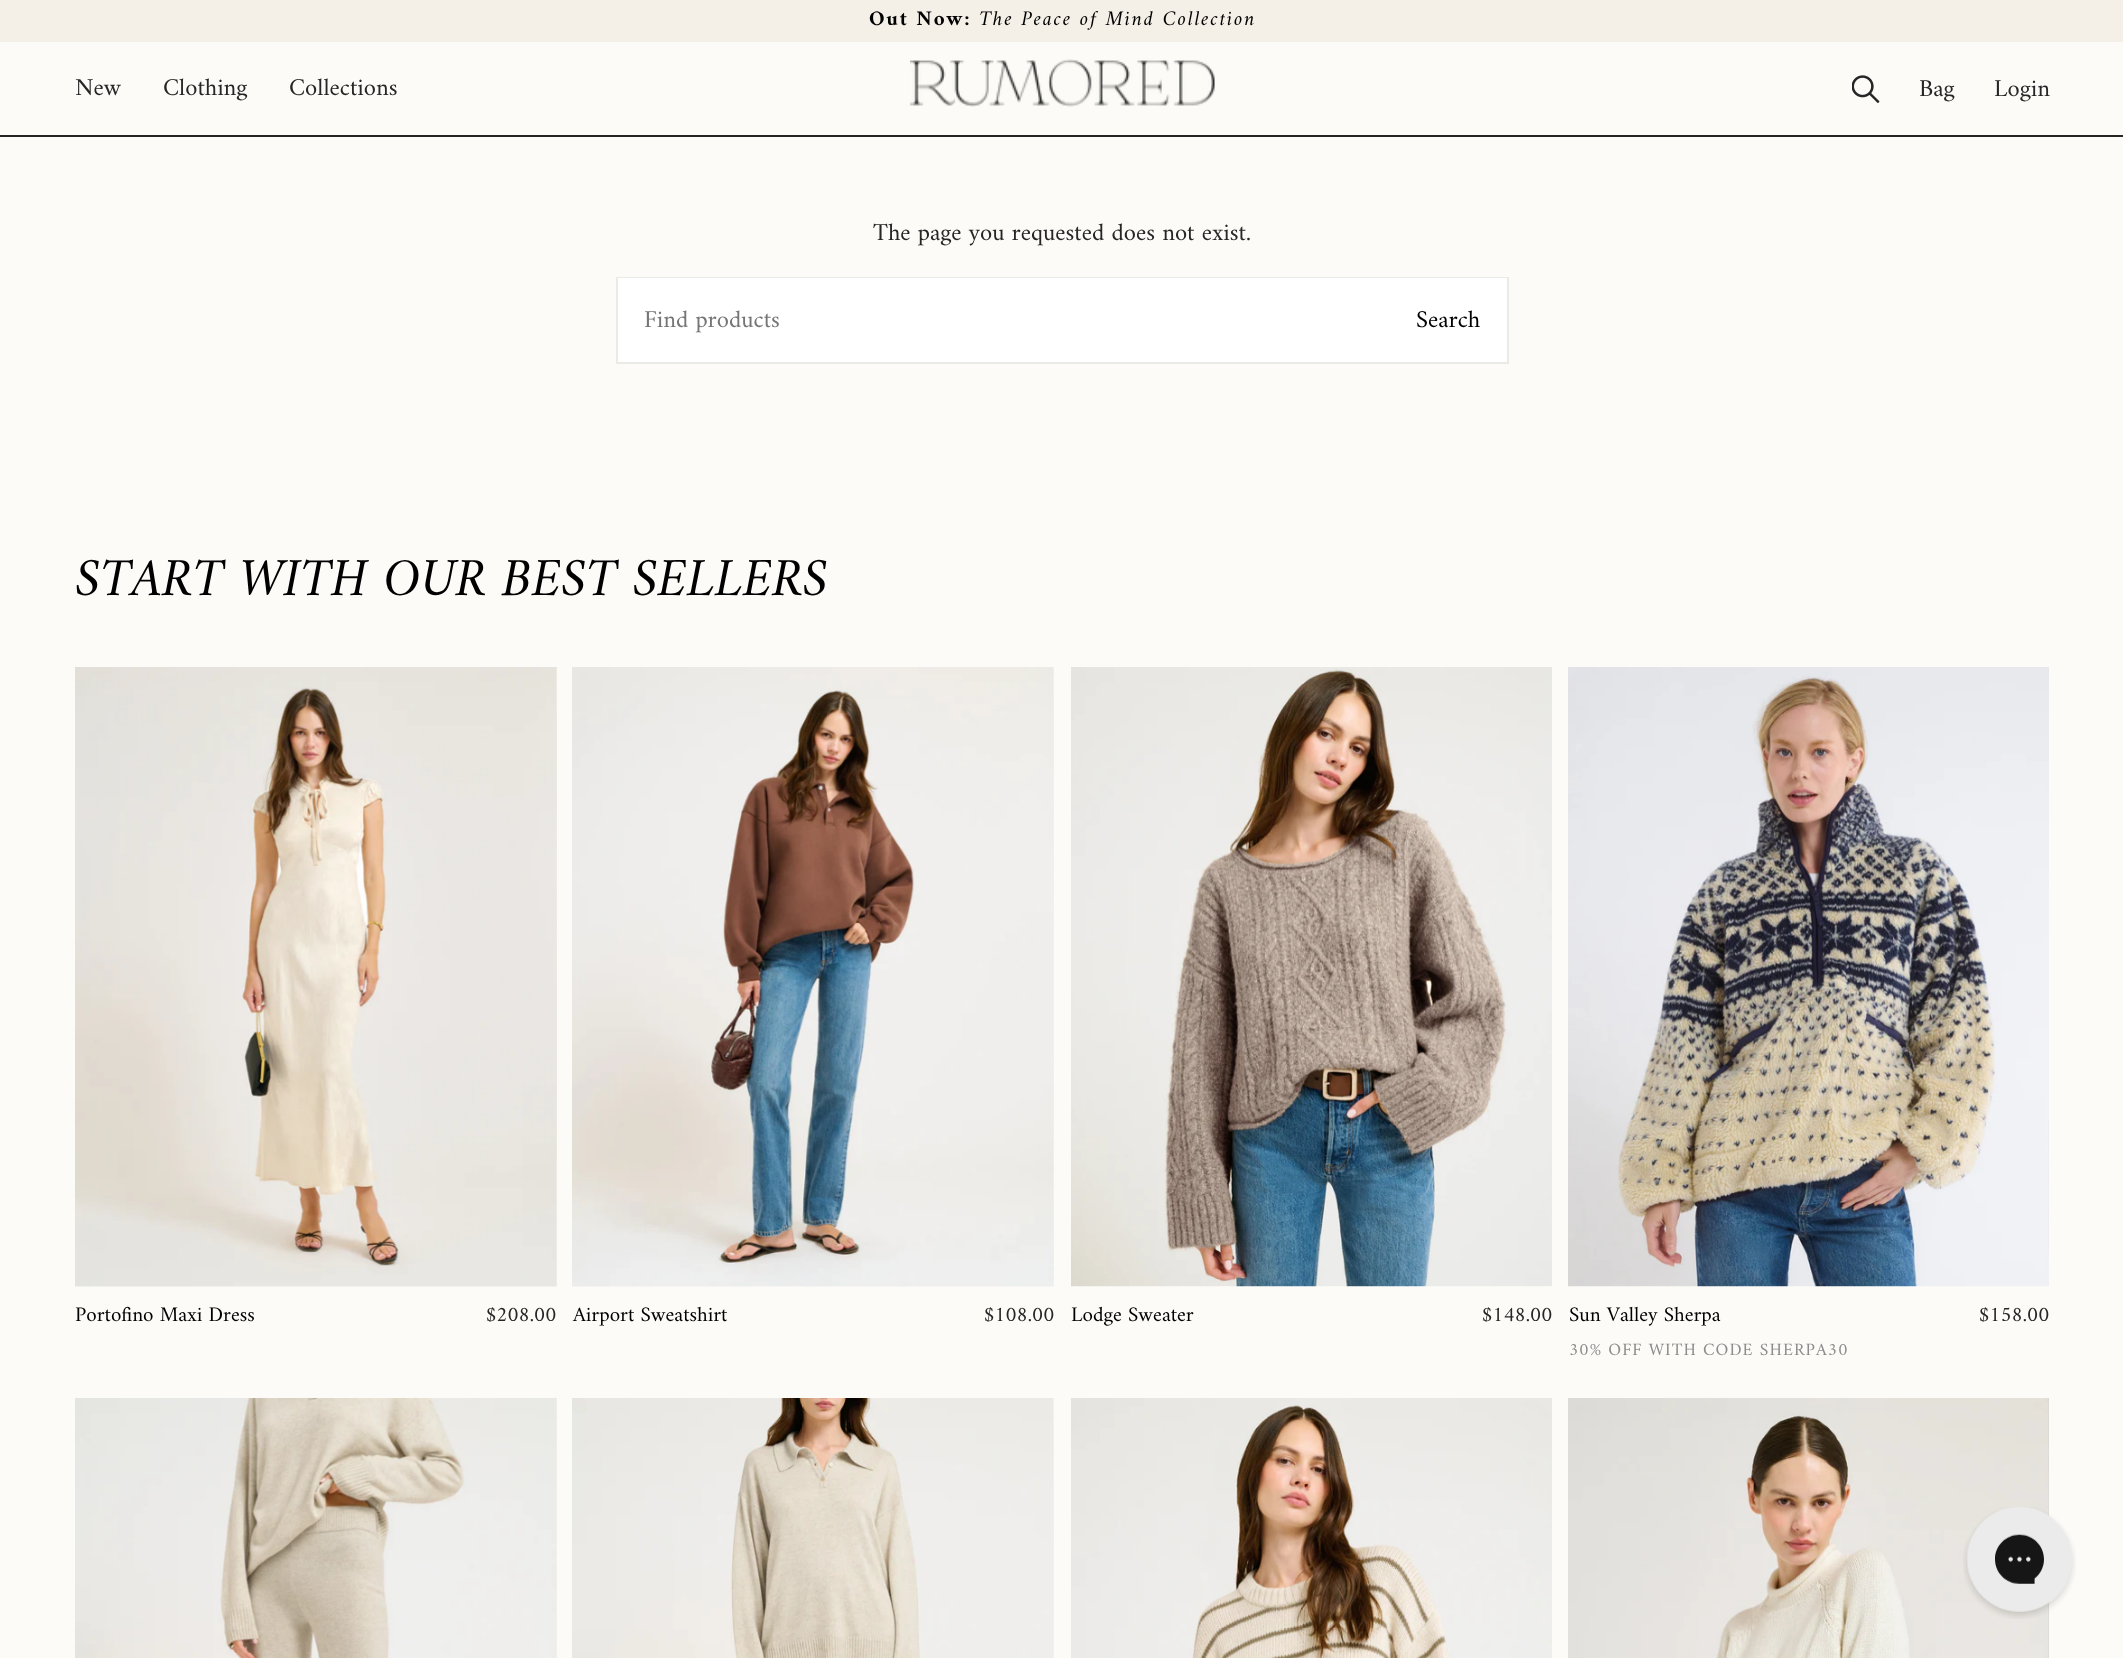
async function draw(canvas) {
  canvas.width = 2123
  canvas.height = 1658
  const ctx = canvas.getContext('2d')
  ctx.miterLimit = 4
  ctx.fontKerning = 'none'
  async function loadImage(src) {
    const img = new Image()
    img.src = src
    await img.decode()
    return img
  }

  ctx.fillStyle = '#fcfbf8'
  ctx.fillRect(0, 0, 2123, 1658)
  ctx.fillStyle = '#f4f0e8'
  ctx.fillRect(0, 0, 2123, 42)
  ctx.letterSpacing = '1.75px'
  ctx.font = 'bold 21px Amiri'
  ctx.fillStyle = '#000'
  ctx.fillText('Out Now:', 869, 25)
  ctx.font = 'italic 21px Amiri'
  ctx.fillText('The Peace of Mind Collection', 979, 25)
  ctx.letterSpacing = '0px'
  ctx.font = '24.5px Amiri'
  ctx.fillStyle = '#262626'
  ctx.fillText('New', 75, 95)
  ctx.fillText('Clothing', 163, 95)
  ctx.fillText('Collections', 289, 95)
  ctx.drawImage(await loadImage('image0.png'), 910, 59, 305, 48)
  ctx.drawImage(await loadImage('image1.png'), 1852, 75, 28, 28)
  ctx.fillText('Bag', 1919, 96)
  ctx.fillText('Login', 1994, 96)
  ctx.fillRect(0, 135, 2123, 2)
  ctx.fillText('The page you requested does not exist.', 873, 240)
  ctx.strokeStyle = '#ebeae7'
  ctx.lineWidth = 2
  ctx.strokeRect(617, 278, 891, 85)
  ctx.fillStyle = '#fff'
  ctx.fillRect(618, 278, 889, 84)
  ctx.fillStyle = '#757575'
  ctx.fillText('Find products', 644, 327)
  ctx.fillStyle = '#000'
  ctx.fillText('Search', 1416, 327)
  ctx.font = 'italic 54.1px Amiri'
  ctx.fillText('START WITH OUR BEST SELLERS', 75, 595)
  ctx.fillStyle = '#f4f0e8'
  ctx.fillRect(75, 667, 482, 619)
  ctx.drawImage(await loadImage('image2.png'), 75, 667, 482, 620)
  ctx.drawImage(await loadImage('image3.png'), 556, 709, 1, 450)
  ctx.font = '21px Amiri'
  ctx.fillStyle = '#000'
  ctx.fillText('Portofino Maxi Dress', 75, 1321)
  ctx.fillStyle = '#262626'
  ctx.fillText('$208.00', 486, 1321)
  ctx.fillStyle = '#f4f0e8'
  ctx.fillRect(572, 667, 482, 619)
  ctx.drawImage(await loadImage('image4.png'), 572, 667, 482, 620)
  ctx.fillStyle = '#000'
  ctx.fillText('Airport Sweatshirt', 573, 1321)
  ctx.fillStyle = '#262626'
  ctx.fillText('$108.00', 984, 1321)
  ctx.drawImage(await loadImage('image5.png'), 1071, 667, 481, 620)
  ctx.fillStyle = '#000'
  ctx.fillText('Lodge Sweater', 1071, 1321)
  ctx.fillStyle = '#262626'
  ctx.fillText('$148.00', 1482, 1321)
  ctx.drawImage(await loadImage('image6.png'), 1568, 667, 481, 620)
  ctx.drawImage(await loadImage('image7.png'), 2048, 1119, 1, 134)
  ctx.fillStyle = '#000'
  ctx.fillText('Sun Valley Sherpa', 1569, 1321)
  ctx.fillStyle = '#262626'
  ctx.fillText('$158.00', 1979, 1321)
  ctx.letterSpacing = '1.05px'
  ctx.font = '17.5px Amiri'
  ctx.fillStyle = '#8c8c8c'
  ctx.fillText('30% OFF WITH CODE SHERPA30', 1569, 1355)
  ctx.fillStyle = '#f4f0e8'
  ctx.fillRect(556, 1398, 1, 260)
  ctx.drawImage(await loadImage('image8.png'), 75, 1398, 482, 260)
  ctx.fillRect(1053, 1398, 1, 260)
  ctx.drawImage(await loadImage('image9.png'), 572, 1398, 481, 260)
  ctx.drawImage(await loadImage('image10.png'), 1071, 1398, 481, 260)
  ctx.drawImage(await loadImage('image11.png'), 1568, 1398, 481, 260)
  ctx.drawImage(await loadImage('image12.png'), 2048, 1398, 1, 260)
  ctx.drawImage(await loadImage('image13.png'), 1963, 1507, 113, 112)
}

draw(document.querySelector('canvas'))
